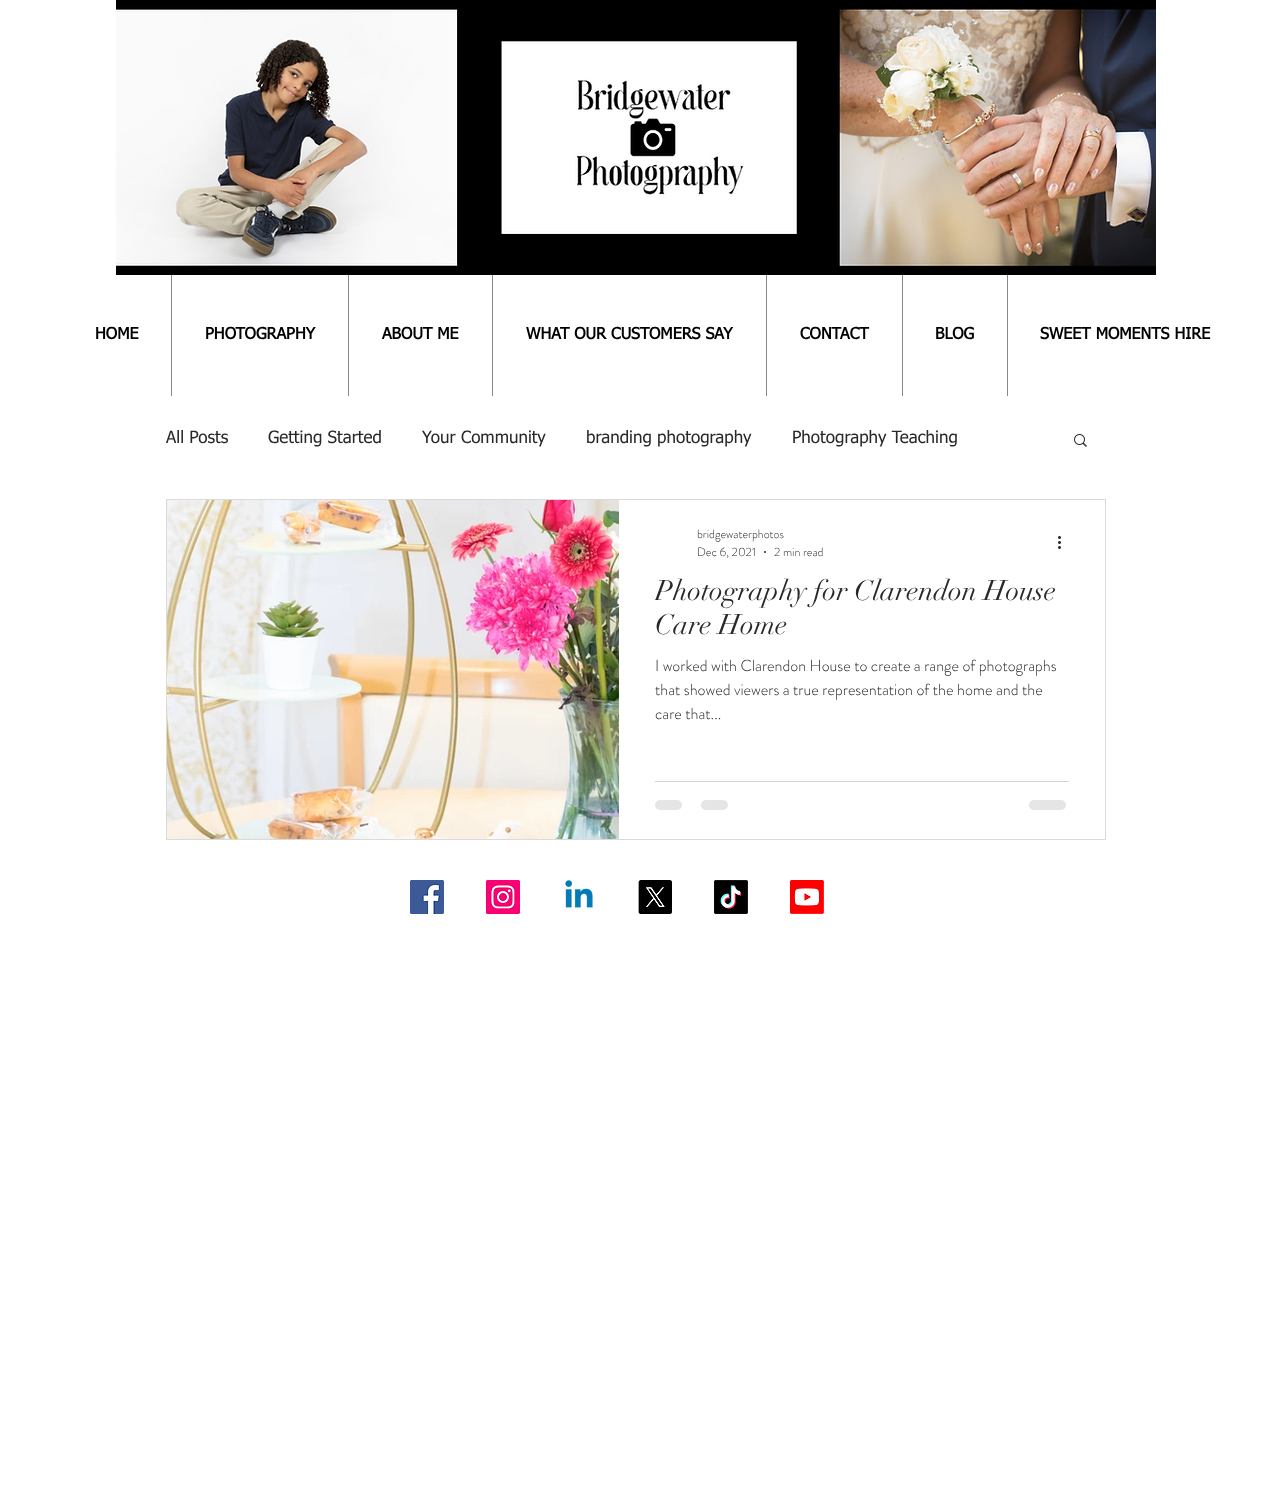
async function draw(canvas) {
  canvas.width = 1272
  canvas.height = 1504
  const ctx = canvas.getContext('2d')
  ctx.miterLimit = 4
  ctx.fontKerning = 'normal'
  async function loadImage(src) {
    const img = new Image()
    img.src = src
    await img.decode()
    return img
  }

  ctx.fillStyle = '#fff'
  ctx.fillRect(0, 0, 1272, 1504)
  ctx.drawImage(await loadImage('image0.png'), 116, 0, 1040, 275)
  ctx.font = 'bold 16px tahoma'
  ctx.fillStyle = '#000'
  ctx.fillText('HOME', 95, 339)
  ctx.fillStyle = '#898888'
  ctx.fillRect(171, 275, 1, 121)
  ctx.fillStyle = '#000'
  ctx.fillText('PHOTOGRAPHY', 205, 339)
  ctx.fillStyle = '#898888'
  ctx.fillRect(348, 275, 1, 121)
  ctx.fillStyle = '#000'
  ctx.fillText('ABOUT ME', 382, 339)
  ctx.fillStyle = '#898888'
  ctx.fillRect(492, 275, 1, 121)
  ctx.fillStyle = '#000'
  ctx.fillText('WHAT OUR CUSTOMERS SAY', 526, 339)
  ctx.fillStyle = '#898888'
  ctx.fillRect(766, 275, 1, 121)
  ctx.fillStyle = '#000'
  ctx.fillText('CONTACT', 800, 339)
  ctx.fillStyle = '#898888'
  ctx.fillRect(902, 275, 1, 121)
  ctx.fillStyle = '#000'
  ctx.fillText('BLOG', 935, 339)
  ctx.fillStyle = '#898888'
  ctx.fillRect(1007, 275, 1, 121)
  ctx.fillStyle = '#000'
  ctx.fillText('SWEET MOMENTS HIRE', 1040, 339)
  ctx.font = '17px tahoma'
  ctx.fillStyle = '#292929'
  ctx.fillText('All Posts', 166, 443)
  ctx.fillText('Getting Started', 268, 443)
  ctx.fillText('Your Community', 422, 443)
  ctx.fillText('branding photography', 586, 443)
  ctx.fillText('Photography Teaching', 792, 443)
  ctx.drawImage(await loadImage('image1.png'), 1074, 434, 13, 13)
  ctx.strokeStyle = '#dbdbdb'
  ctx.strokeRect(166.5, 499.5, 939, 340)
  ctx.drawImage(await loadImage('image2.png'), 167, 500, 452, 339)
  ctx.font = '300 12px "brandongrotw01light"'
  ctx.fillText('bridgewaterphotos', 697, 538)
  ctx.fillText('Dec 6, 2021', 697, 556)
  ctx.beginPath()
  ctx.arc(765, 552, 1, 0, 2 * Math.PI)
  ctx.fill()
  ctx.fillText('2 min read', 774, 556)
  ctx.drawImage(await loadImage('image3.png'), 1058, 536, 3, 13)
  ctx.save()
  ctx.beginPath()
  ctx.rect(655, 574, 414, 68)
  ctx.clip()
  ctx.font = '28px didot'
  ctx.fillText('Photography for Clarendon House', 655, 600)
  ctx.restore()
  ctx.font = '28px didot'
  ctx.fillText('Care Home', 655, 634)
  ctx.font = '300 16px "brandongrotw01light"'
  ctx.fillText('I worked with Clarendon House to create a range of photographs', 655, 671)
  ctx.fillText('that showed viewers a true representation of the home and the', 655, 695)
  ctx.fillText('care that...', 655, 719)
  ctx.fillStyle = '#d4d4d4'
  ctx.fillRect(655, 781, 414, 1)
  ctx.fillStyle = '#e5e5e5'
  ctx.beginPath()
  ctx.roundRect(655, 800, 27, 10, 5)
  ctx.fill()
  ctx.beginPath()
  ctx.roundRect(701, 800, 27, 10, 5)
  ctx.fill()
  ctx.beginPath()
  ctx.roundRect(1029, 800, 37, 10, 5)
  ctx.fill()
  ctx.drawImage(await loadImage('image4.png'), 410, 880, 34, 34)
  ctx.drawImage(await loadImage('image5.png'), 486, 880, 34, 34)
  ctx.drawImage(await loadImage('image6.png'), 565, 880, 28, 28)
  ctx.drawImage(await loadImage('image7.png'), 638, 880, 34, 34)
  ctx.drawImage(await loadImage('image8.png'), 714, 880, 34, 34)
  ctx.drawImage(await loadImage('image9.png'), 790, 880, 34, 34)
}

draw(document.querySelector('canvas'))
